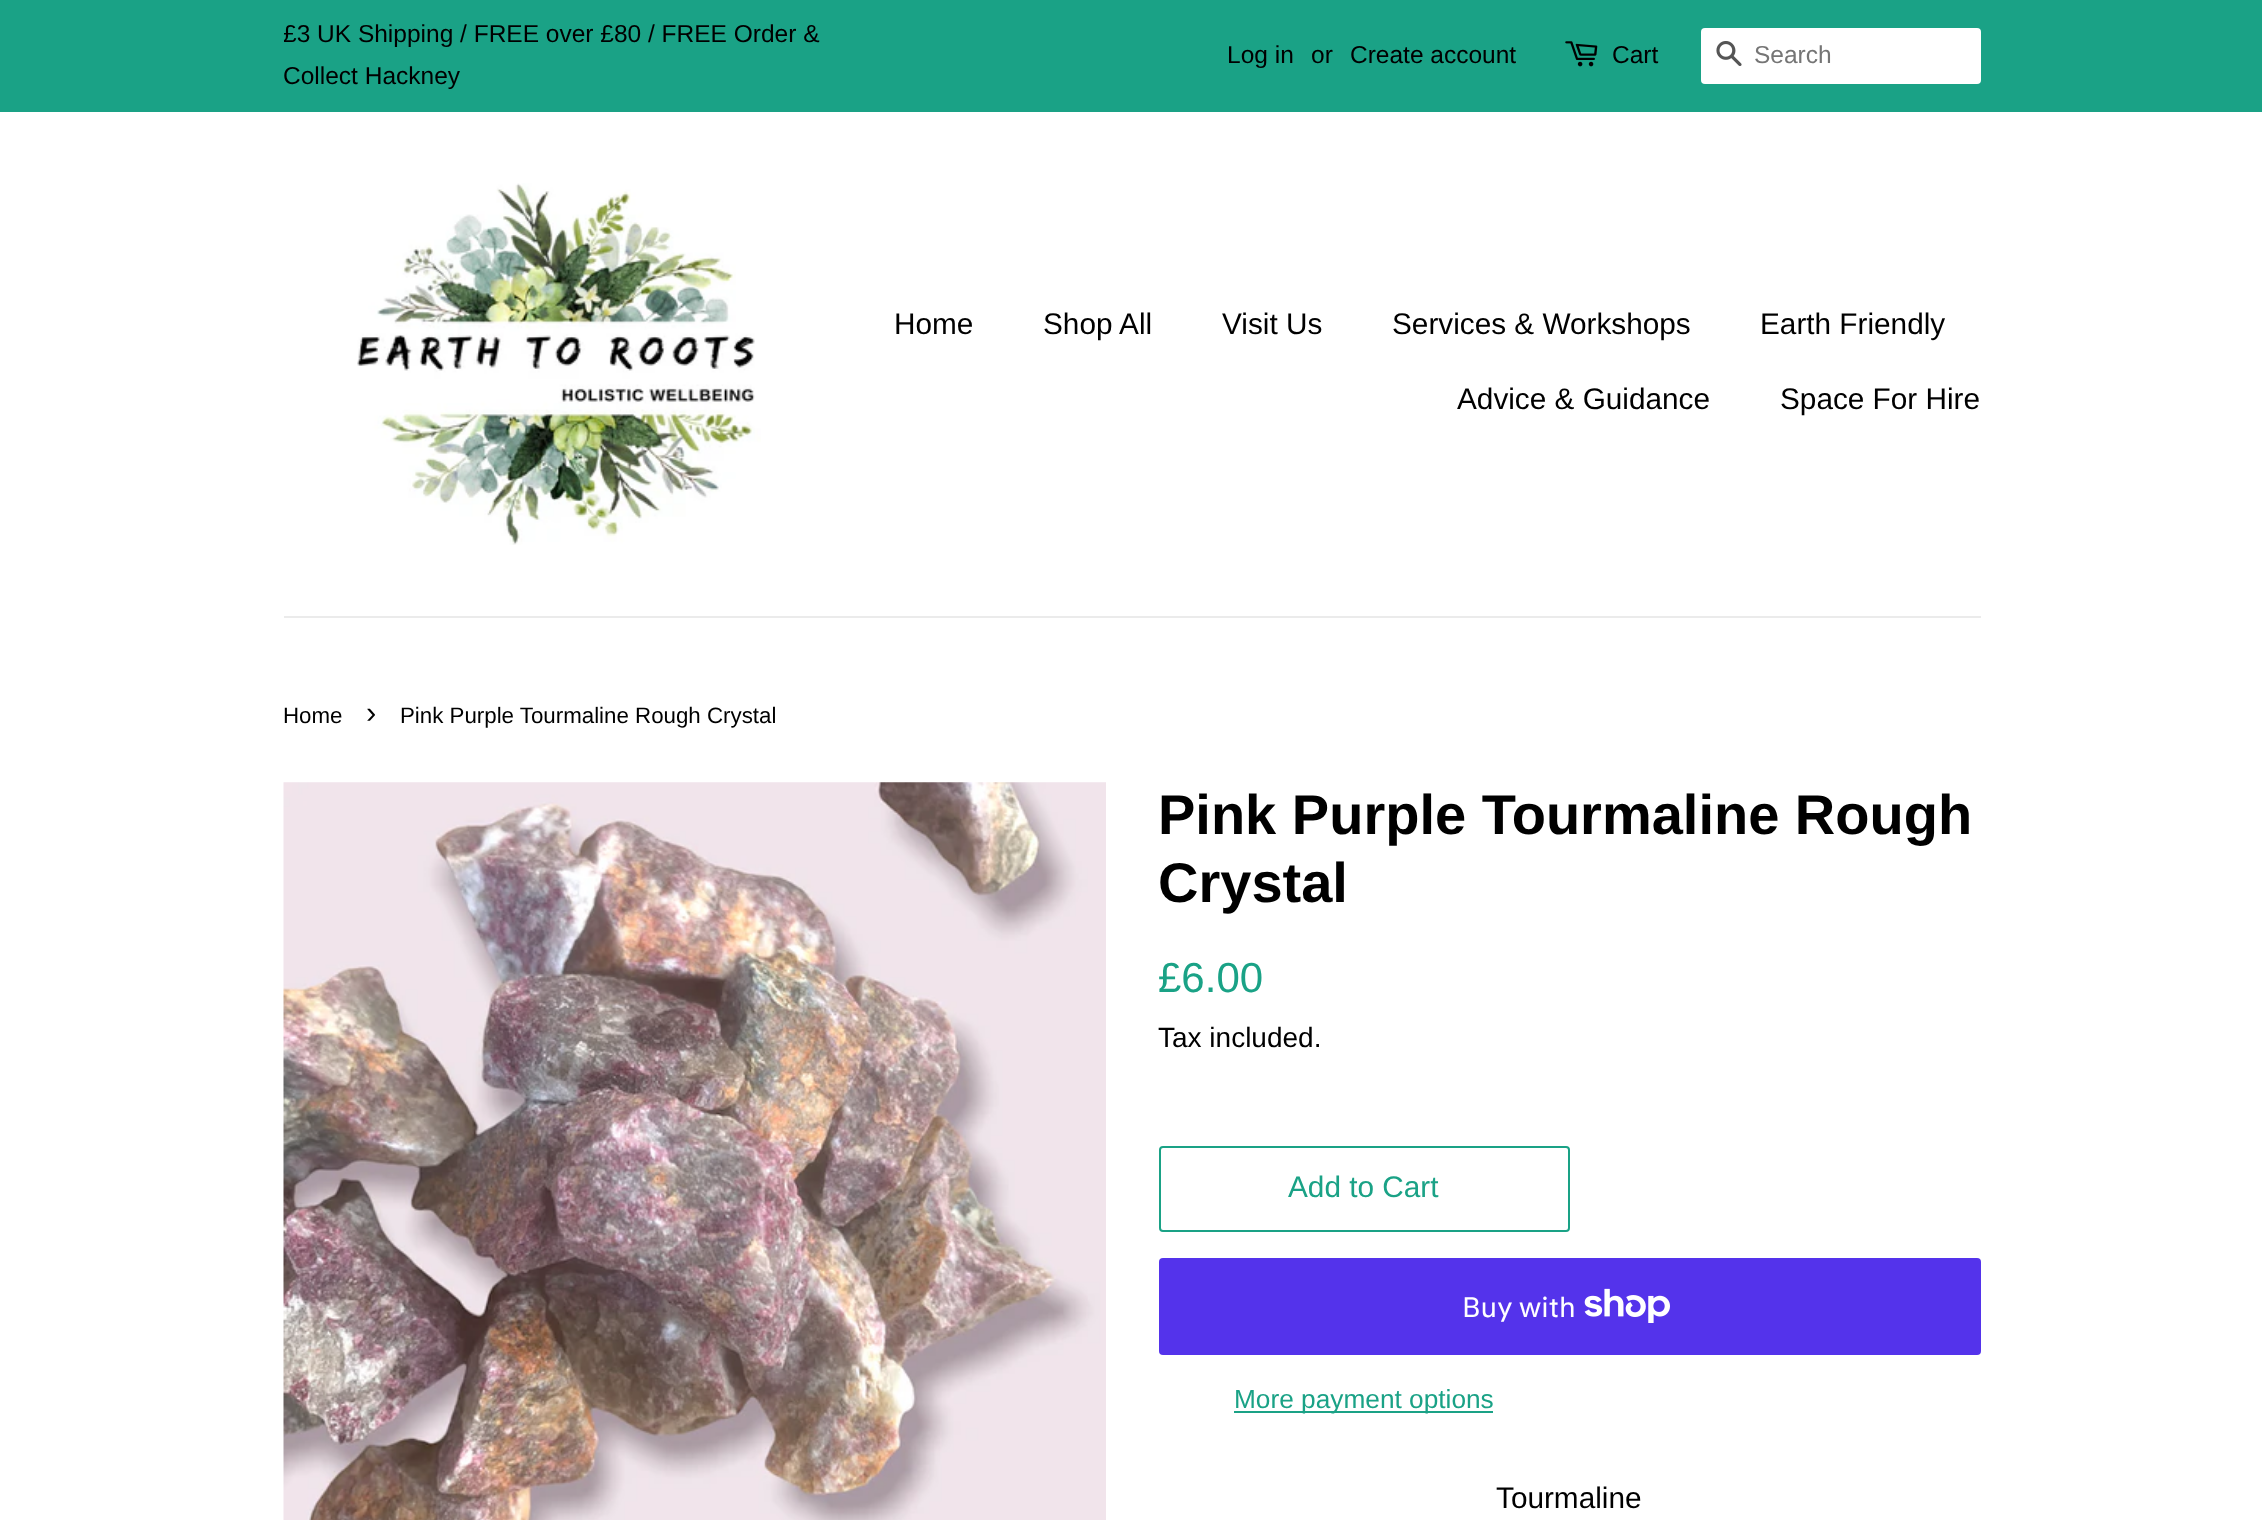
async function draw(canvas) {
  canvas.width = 2262
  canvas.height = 1520
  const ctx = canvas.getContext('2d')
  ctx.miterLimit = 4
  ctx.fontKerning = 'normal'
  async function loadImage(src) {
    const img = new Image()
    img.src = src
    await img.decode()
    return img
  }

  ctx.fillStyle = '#fff'
  ctx.fillRect(0, 0, 2262, 1520)
  ctx.fillStyle = '#1aa286'
  ctx.fillRect(0, 0, 2262, 112)
  ctx.save()
  ctx.beginPath()
  ctx.rect(284, 14, 565, 84)
  ctx.clip()
  ctx.font = '24.5px Arimo'
  ctx.fillStyle = '#000'
  ctx.fillText('£3 UK Shipping / FREE over £80 / FREE Order &', 283, 42)
  ctx.restore()
  ctx.font = '24.5px Arimo'
  ctx.fillStyle = '#000'
  ctx.fillText('Collect Hackney', 283, 84)
  ctx.fillText('Log in', 1227, 63)
  ctx.fillText('or', 1311, 63)
  ctx.fillText('Create account', 1350, 63)
  ctx.drawImage(await loadImage('image0.png'), 1565, 41, 33, 26)
  ctx.fillText('Cart', 1612, 63)
  ctx.fillStyle = '#fff'
  ctx.beginPath()
  ctx.roundRect(1701, 28, 280, 56, 4)
  ctx.fill()
  ctx.drawImage(await loadImage('image1.png'), 1716, 41, 26, 25)
  ctx.fillStyle = '#757575'
  ctx.fillText('Search', 1754, 63)
  ctx.fillStyle = '#ebebeb'
  ctx.fillRect(284, 616, 1697, 2)
  ctx.drawImage(await loadImage('image2.png'), 357, 183, 404, 362)
  ctx.font = '29.75px Arimo'
  ctx.fillStyle = '#000'
  ctx.fillText('Home', 894, 334)
  ctx.fillText('Shop All', 1043, 334)
  ctx.fillText('Visit Us', 1222, 334)
  ctx.fillText('Services & Workshops', 1392, 334)
  ctx.fillText('Earth Friendly', 1760, 334)
  ctx.fillText('Advice & Guidance', 1457, 409)
  ctx.fillText('Space For Hire', 1780, 409)
  ctx.font = '22.3px Arimo'
  ctx.fillText('Home', 283, 723)
  ctx.font = '31px Arimo'
  ctx.fillText('›', 366, 723)
  ctx.font = '22.3px Arimo'
  ctx.fillText('Pink Purple Tourmaline Rough Crystal', 400, 723)
  ctx.drawImage(await loadImage('image3.png'), 283, 782, 823, 738)
  ctx.font = 'bold 56px Arimo'
  ctx.fillText('Pink Purple Tourmaline Rough', 1158, 834)
  ctx.fillText('Crystal', 1158, 902)
  ctx.font = '42px Arimo'
  ctx.fillStyle = '#1aa286'
  ctx.fillText('£6.00', 1158, 992)
  ctx.font = '28px Arimo'
  ctx.fillStyle = '#000'
  ctx.fillText('Tax included.', 1158, 1047)
  ctx.beginPath()
  ctx.roundRect(1160, 1147, 409, 84, 3)
  ctx.strokeStyle = '#1aa286'
  ctx.lineWidth = 2
  ctx.stroke()
  ctx.font = '29.75px Arimo'
  ctx.fillStyle = '#1aa286'
  ctx.fillText('Add to Cart', 1288, 1197)
  ctx.fillStyle = '#5433eb'
  ctx.beginPath()
  ctx.roundRect(1159, 1258, 822, 97, 4)
  ctx.fill()
  ctx.font = '28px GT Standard'
  ctx.fillStyle = '#fff'
  ctx.fillText('Buy with', 1462, 1317)
  ctx.drawImage(await loadImage('image4.png'), 1584, 1288, 86, 35)
  ctx.fillStyle = '#1aa286'
  ctx.fillRect(1234, 1411, 259, 2)
  ctx.font = '26.25px Arimo'
  ctx.fillText('More payment options', 1234, 1408)
  ctx.font = '29.75px Arimo'
  ctx.fillStyle = '#000'
  ctx.fillText('Tourmaline', 1496, 1508)
}

draw(document.querySelector('canvas'))
